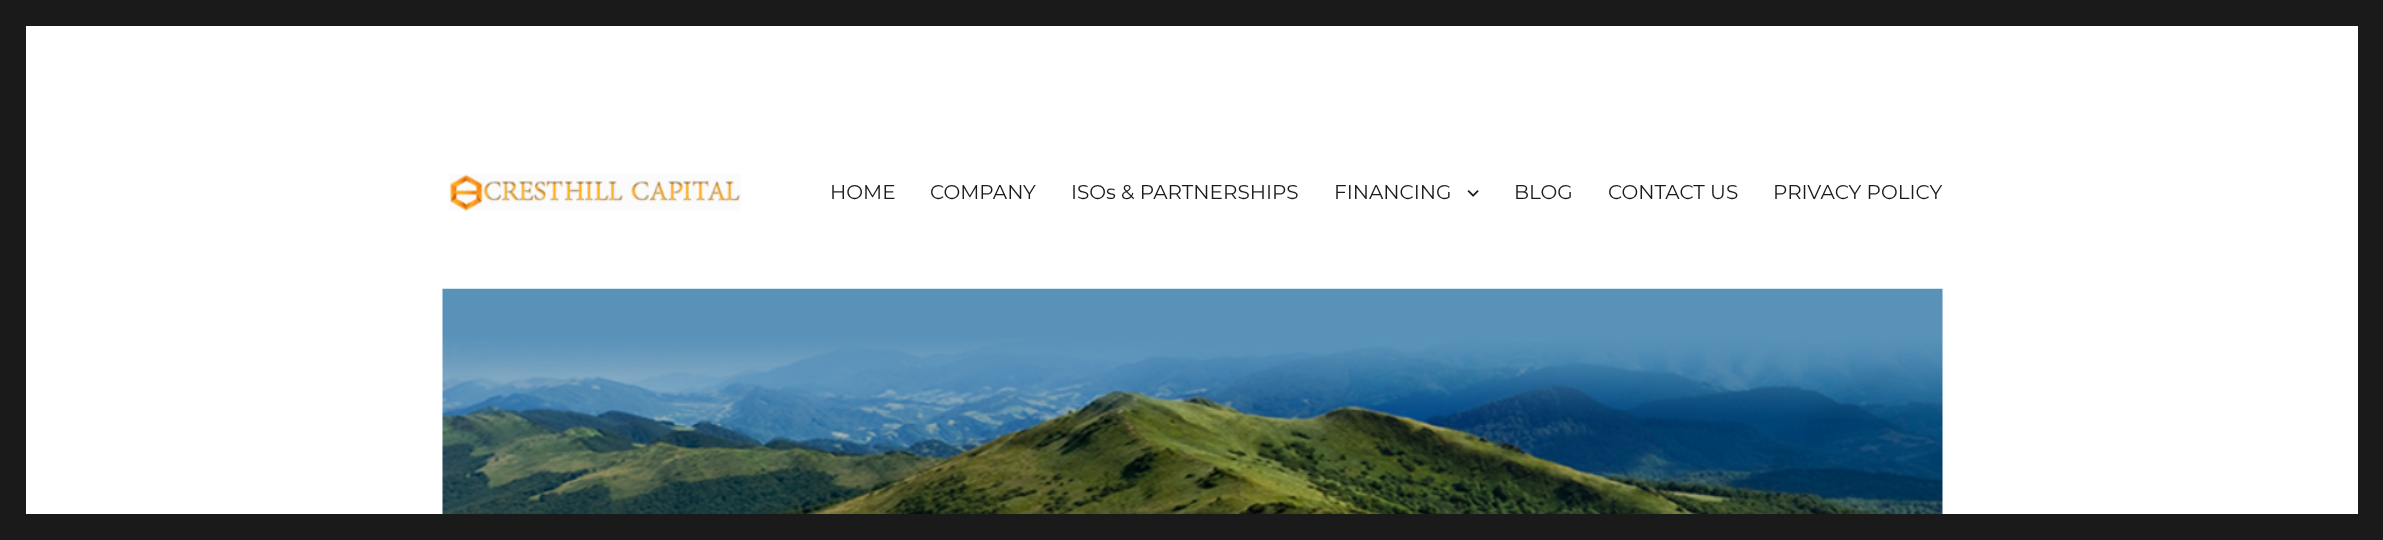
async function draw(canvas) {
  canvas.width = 2383
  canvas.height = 540
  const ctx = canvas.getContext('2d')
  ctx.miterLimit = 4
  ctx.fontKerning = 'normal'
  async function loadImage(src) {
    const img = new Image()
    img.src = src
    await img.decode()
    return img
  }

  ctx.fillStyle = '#1a1a1a'
  ctx.fillRect(0, 0, 2383, 540)
  ctx.fillStyle = '#fff'
  ctx.fillRect(26, 26, 2332, 488)
  ctx.drawImage(await loadImage('image0.png'), 449, 174, 292, 37)
  ctx.font = '20px Montserrat'
  ctx.fillStyle = '#1a1a1a'
  ctx.fillText('HOME', 830, 199)
  ctx.fillText('COMPANY', 930, 199)
  ctx.fillText('ISOs & PARTNERSHIPS', 1071, 199)
  ctx.fillText('FINANCING', 1334, 199)
  ctx.drawImage(await loadImage('image1.png'), 1467, 190, 12, 7)
  ctx.fillText('BLOG', 1514, 199)
  ctx.fillText('CONTACT US', 1608, 199)
  ctx.fillText('PRIVACY POLICY', 1773, 199)
  ctx.drawImage(await loadImage('image2.png'), 442, 288, 1501, 226)
}

draw(document.querySelector('canvas'))
